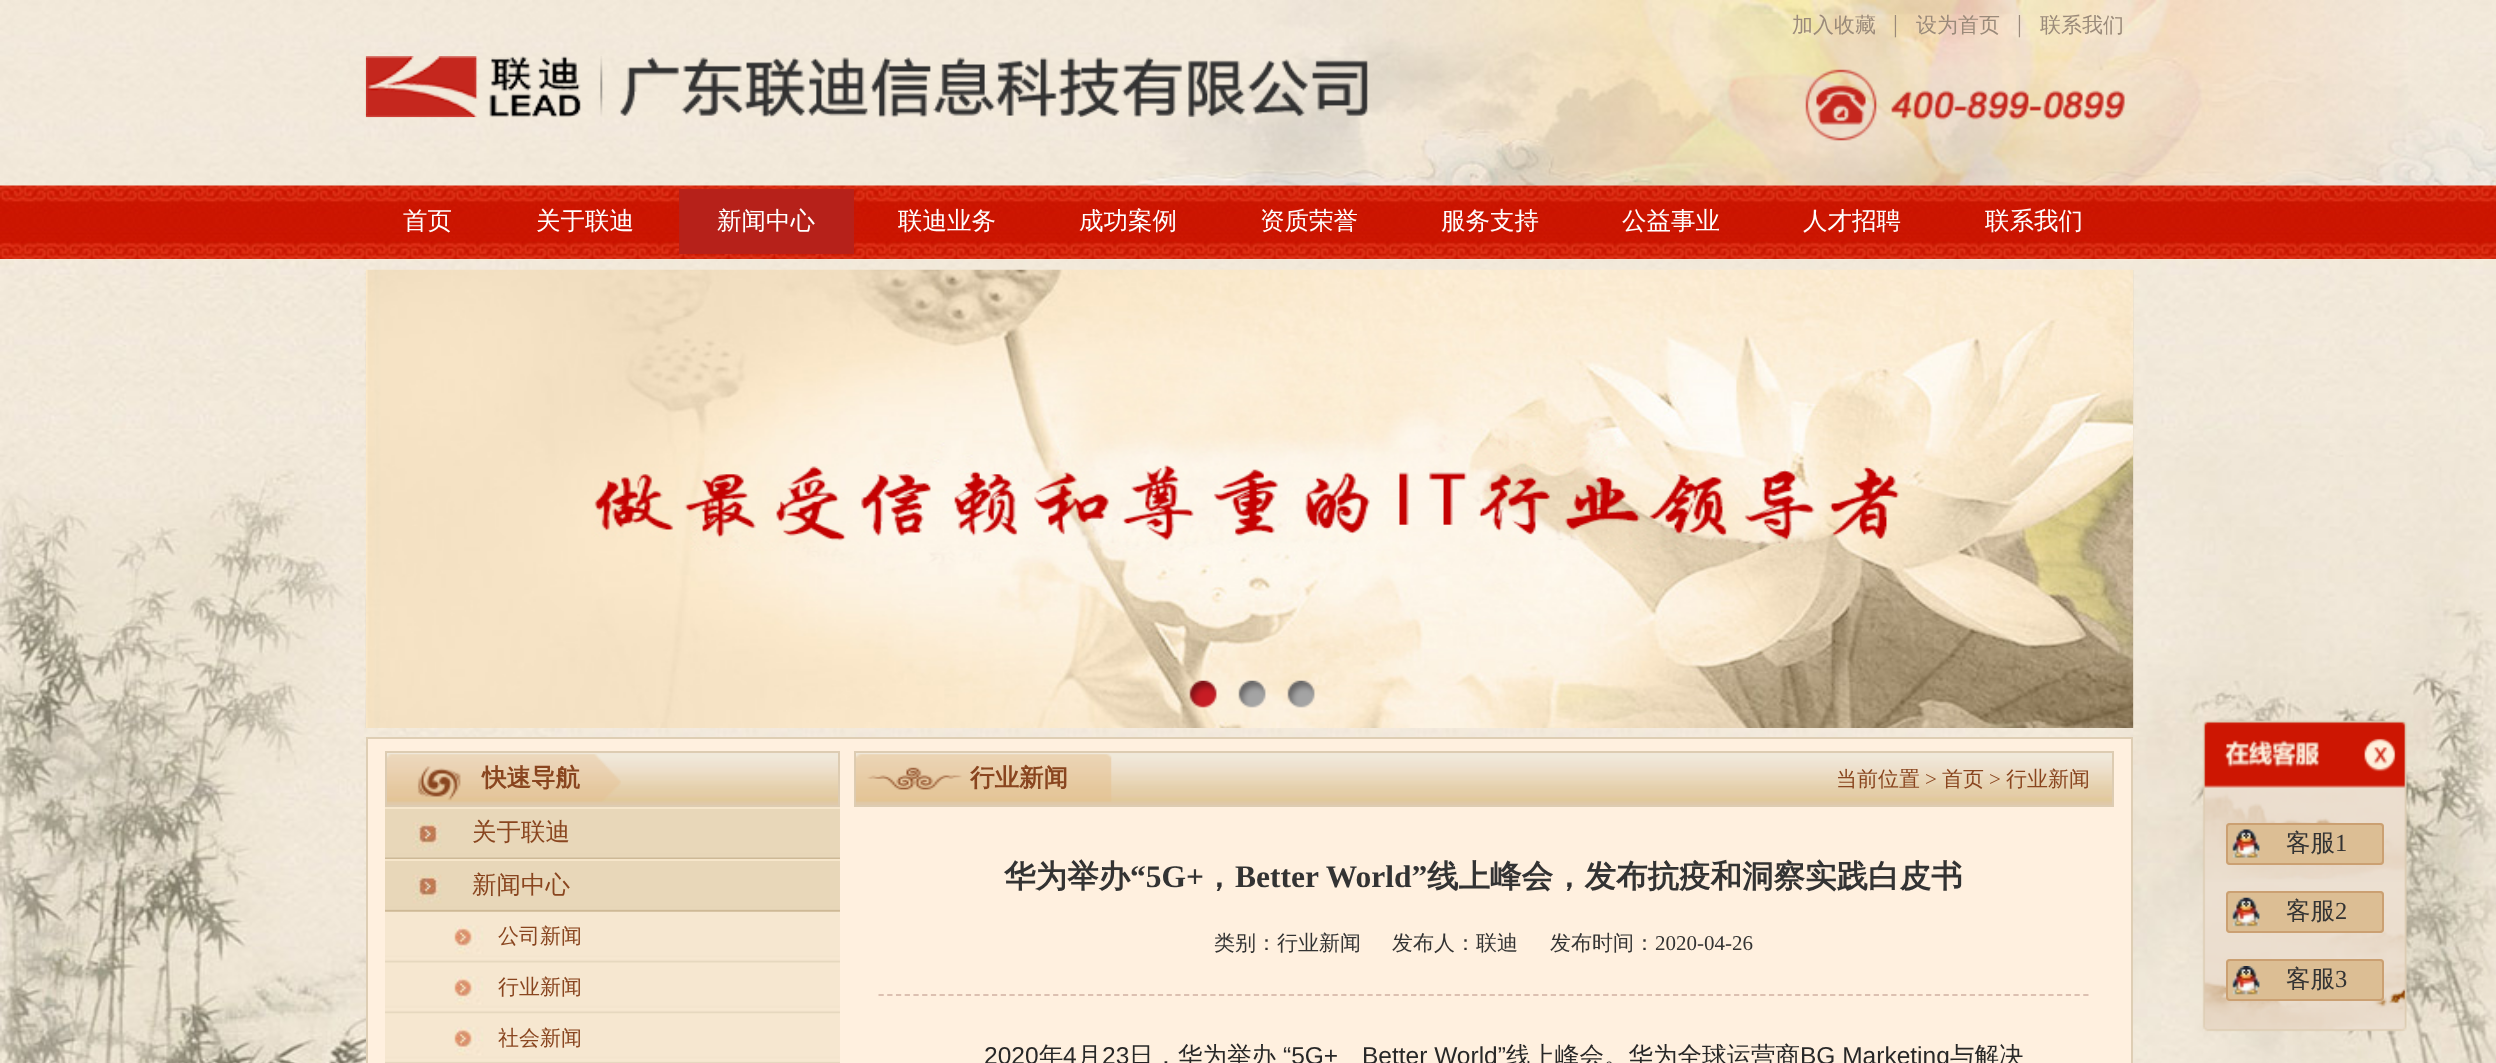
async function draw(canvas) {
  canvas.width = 2496
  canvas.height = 1063
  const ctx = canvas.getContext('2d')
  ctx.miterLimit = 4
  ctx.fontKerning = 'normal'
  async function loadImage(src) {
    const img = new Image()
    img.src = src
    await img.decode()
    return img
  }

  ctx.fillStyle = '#fff'
  ctx.fillRect(0, 0, 2496, 1063)
  ctx.drawImage(await loadImage('image0.png'), 0, 185, 2496, 552)
  ctx.drawImage(await loadImage('image1.png'), 0, 0, 2496, 186)
  ctx.font = '500 21px WenQuanYi Zen Hei'
  ctx.fillStyle = '#9a8a7a'
  ctx.fillText('加入收藏', 1792, 32)
  ctx.font = '24.5px Liberation Serif'
  ctx.fillText('|', 1893, 32)
  ctx.font = '500 21px WenQuanYi Zen Hei'
  ctx.fillText('设为首页', 1916, 32)
  ctx.font = '24.5px Liberation Serif'
  ctx.fillText('|', 2017, 32)
  ctx.font = '500 21px WenQuanYi Zen Hei'
  ctx.fillText('联系我们', 2040, 32)
  ctx.drawImage(await loadImage('image2.png'), 1805, 69, 320, 72)
  ctx.drawImage(await loadImage('image3.png'), 365, 56, 1003, 62)
  ctx.drawImage(await loadImage('image4.png'), 0, 185, 2496, 74)
  ctx.font = '500 24.5px WenQuanYi Zen Hei'
  ctx.fillStyle = '#fff'
  ctx.fillText('首页', 403, 229)
  ctx.fillText('关于联迪', 536, 229)
  ctx.fillStyle = '#b6211a'
  ctx.fillRect(679, 189, 175, 65)
  ctx.fillStyle = '#fff'
  ctx.fillText('新闻中心', 717, 229)
  ctx.fillText('联迪业务', 898, 229)
  ctx.fillText('成功案例', 1079, 229)
  ctx.fillText('资质荣誉', 1260, 229)
  ctx.fillText('服务支持', 1441, 229)
  ctx.fillText('公益事业', 1622, 229)
  ctx.fillText('人才招聘', 1803, 229)
  ctx.fillText('联系我们', 1985, 229)
  ctx.drawImage(await loadImage('image5.png'), 0, 259, 555, 804)
  ctx.drawImage(await loadImage('image21.png'), 1965, 259, 531, 804)
  ctx.drawImage(await loadImage('image6.png'), 366, 269, 1768, 459)
  ctx.drawImage(await loadImage('image7.png'), 365, 271, 1, 457)
  ctx.drawImage(await loadImage('image8.png'), 2133, 270, 1, 458)
  ctx.drawImage(await loadImage('image9.png'), 1189, 680, 28, 28)
  ctx.drawImage(await loadImage('image10.png'), 1238, 680, 28, 28)
  ctx.drawImage(await loadImage('image11.png'), 1287, 680, 28, 28)
  ctx.fillStyle = '#fff0df'
  ctx.beginPath()
  ctx.rect(367, 738, 1765, 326)
  ctx.fill()
  ctx.strokeStyle = '#deceb4'
  ctx.lineWidth = 2
  ctx.stroke()
  ctx.drawImage(await loadImage('image12.png'), 387, 753, 451, 52)
  ctx.strokeStyle = '#ddccb2'
  ctx.strokeRect(386, 752, 453, 54)
  ctx.drawImage(await loadImage('image13.png'), 387, 754, 234, 48)
  ctx.font = 'bold 24.5px WenQuanYi Zen Hei'
  ctx.fillStyle = '#89451f'
  ctx.fillText('快速导航', 482, 786)
  ctx.drawImage(await loadImage('image14.png'), 385, 809, 455, 49)
  ctx.fillStyle = '#f6e6cb'
  ctx.fillRect(385, 807, 455, 2)
  ctx.fillStyle = '#ceb996'
  ctx.fillRect(385, 858, 455, 1)
  ctx.font = '500 24.5px WenQuanYi Zen Hei'
  ctx.fillStyle = '#89451f'
  ctx.fillText('关于联迪', 472, 840)
  ctx.drawImage(await loadImage('image15.png'), 385, 861, 455, 49)
  ctx.fillStyle = '#f6e6cb'
  ctx.fillRect(385, 859, 455, 2)
  ctx.fillStyle = '#ceb996'
  ctx.fillRect(385, 910, 455, 2)
  ctx.fillStyle = '#89451f'
  ctx.fillText('新闻中心', 472, 893)
  ctx.drawImage(await loadImage('image16.png'), 385, 911, 455, 50)
  ctx.fillStyle = '#e6d8bf'
  ctx.fillRect(385, 961, 455, 2)
  ctx.font = '500 21px WenQuanYi Zen Hei'
  ctx.fillStyle = '#89451f'
  ctx.fillText('公司新闻', 498, 943)
  ctx.drawImage(await loadImage('image17.png'), 385, 962, 455, 50)
  ctx.fillStyle = '#e6d8bf'
  ctx.fillRect(385, 1012, 455, 2)
  ctx.fillStyle = '#89451f'
  ctx.fillText('行业新闻', 498, 994)
  ctx.drawImage(await loadImage('image18.png'), 385, 1013, 455, 49)
  ctx.fillStyle = '#e6d8bf'
  ctx.fillRect(385, 1062, 455, 1)
  ctx.fillStyle = '#89451f'
  ctx.fillText('社会新闻', 498, 1045)
  ctx.drawImage(await loadImage('image19.png'), 856, 753, 1256, 52)
  ctx.strokeRect(855, 752, 1258, 54)
  ctx.drawImage(await loadImage('image20.png'), 855, 754, 257, 48)
  ctx.font = 'bold 24.5px WenQuanYi Zen Hei'
  ctx.fillText('行业新闻', 970, 786)
  ctx.font = '500 21px WenQuanYi Zen Hei'
  ctx.fillText('当前位置', 1836, 786)
  ctx.font = '21px Liberation Serif'
  ctx.fillText('>', 1925, 786)
  ctx.font = '500 21px WenQuanYi Zen Hei'
  ctx.fillText('首页', 1942, 786)
  ctx.font = '21px Liberation Serif'
  ctx.fillText('>', 1989, 786)
  ctx.font = '500 21px WenQuanYi Zen Hei'
  ctx.fillText('行业新闻', 2006, 786)
  ctx.font = 'bold 31.5px WenQuanYi Zen Hei'
  ctx.fillStyle = '#333'
  ctx.fillText('华为举办', 1004, 887)
  ctx.font = 'bold 31.5px Liberation Serif'
  ctx.fillText('“5G+', 1130, 887)
  ctx.font = 'bold 31.5px WenQuanYi Zen Hei'
  ctx.fillText('，', 1203, 887)
  ctx.font = 'bold 31.5px Liberation Serif'
  ctx.fillText('Better World”', 1235, 887)
  ctx.font = 'bold 31.5px WenQuanYi Zen Hei'
  ctx.fillText('线上峰会，发布抗疫和洞察实践白皮书', 1427, 887)
  ctx.font = '500 21px WenQuanYi Zen Hei'
  ctx.fillText('类别：行业新闻', 1214, 950)
  ctx.fillText('发布人：联迪', 1392, 950)
  ctx.fillText('发布时间：', 1550, 950)
  ctx.font = '21px Liberation Serif'
  ctx.fillText('2020-04-26', 1655, 950)
  ctx.beginPath()
  ctx.moveTo(878.5, 995)
  ctx.lineTo(2089.5, 995)
  ctx.strokeStyle = '#dcc0b1'
  ctx.lineWidth = 1.8
  ctx.setLineDash([5.25, 3.48])
  ctx.stroke()
  ctx.font = '24.5px Liberation Sans'
  ctx.fillStyle = '#282828'
  ctx.fillText('2020', 984, 1064)
  ctx.font = '500 24.5px WenQuanYi Zen Hei'
  ctx.fillText('年', 1039, 1064)
  ctx.font = '24.5px Liberation Sans'
  ctx.fillText('4', 1063, 1064)
  ctx.font = '500 24.5px WenQuanYi Zen Hei'
  ctx.fillText('月', 1077, 1064)
  ctx.font = '24.5px Liberation Sans'
  ctx.fillText('23', 1102, 1064)
  ctx.font = '500 24.5px WenQuanYi Zen Hei'
  ctx.fillText('日，华为举办', 1129, 1064)
  ctx.font = '24.5px Liberation Sans'
  ctx.fillText('“5G+', 1283, 1064)
  ctx.fillText('Better World”', 1362, 1064)
  ctx.font = '500 24.5px WenQuanYi Zen Hei'
  ctx.fillText('线上峰会。华为全球运营商', 1506, 1064)
  ctx.font = '24.5px Liberation Sans'
  ctx.fillText('BG Marketing', 1800, 1064)
  ctx.font = '500 24.5px WenQuanYi Zen Hei'
  ctx.fillText('与解决', 1950, 1064)
  ctx.drawImage(await loadImage('image22.png'), 2202, 720, 205, 312)
  ctx.fillStyle = '#dcbe94'
  ctx.beginPath()
  ctx.roundRect(2226, 823, 158, 42, 4)
  ctx.fill()
  ctx.drawImage(await loadImage('image23.png'), 2232, 829, 28, 29)
  ctx.beginPath()
  ctx.roundRect(2227, 824, 156, 40, 3)
  ctx.strokeStyle = '#cba072'
  ctx.lineWidth = 2
  ctx.setLineDash([])
  ctx.stroke()
  ctx.fillStyle = '#333'
  ctx.fillText('客服', 2286, 851)
  ctx.font = '24.5px Liberation Serif'
  ctx.fillText('1', 2335, 851)
  ctx.fillStyle = '#dcbe94'
  ctx.beginPath()
  ctx.roundRect(2226, 891, 158, 42, 4)
  ctx.fill()
  ctx.drawImage(await loadImage('image24.png'), 2232, 897, 28, 30)
  ctx.beginPath()
  ctx.roundRect(2227, 892, 156, 40, 3)
  ctx.stroke()
  ctx.font = '500 24.5px WenQuanYi Zen Hei'
  ctx.fillStyle = '#333'
  ctx.fillText('客服', 2286, 919)
  ctx.font = '24.5px Liberation Serif'
  ctx.fillText('2', 2335, 919)
  ctx.fillStyle = '#dcbe94'
  ctx.beginPath()
  ctx.roundRect(2226, 959, 158, 42, 4)
  ctx.fill()
  ctx.drawImage(await loadImage('image25.png'), 2232, 966, 28, 29)
  ctx.beginPath()
  ctx.roundRect(2227, 960, 156, 40, 3)
  ctx.stroke()
  ctx.font = '500 24.5px WenQuanYi Zen Hei'
  ctx.fillStyle = '#333'
  ctx.fillText('客服', 2286, 987)
  ctx.font = '24.5px Liberation Serif'
  ctx.fillText('3', 2335, 987)
}

draw(document.querySelector('canvas'))
